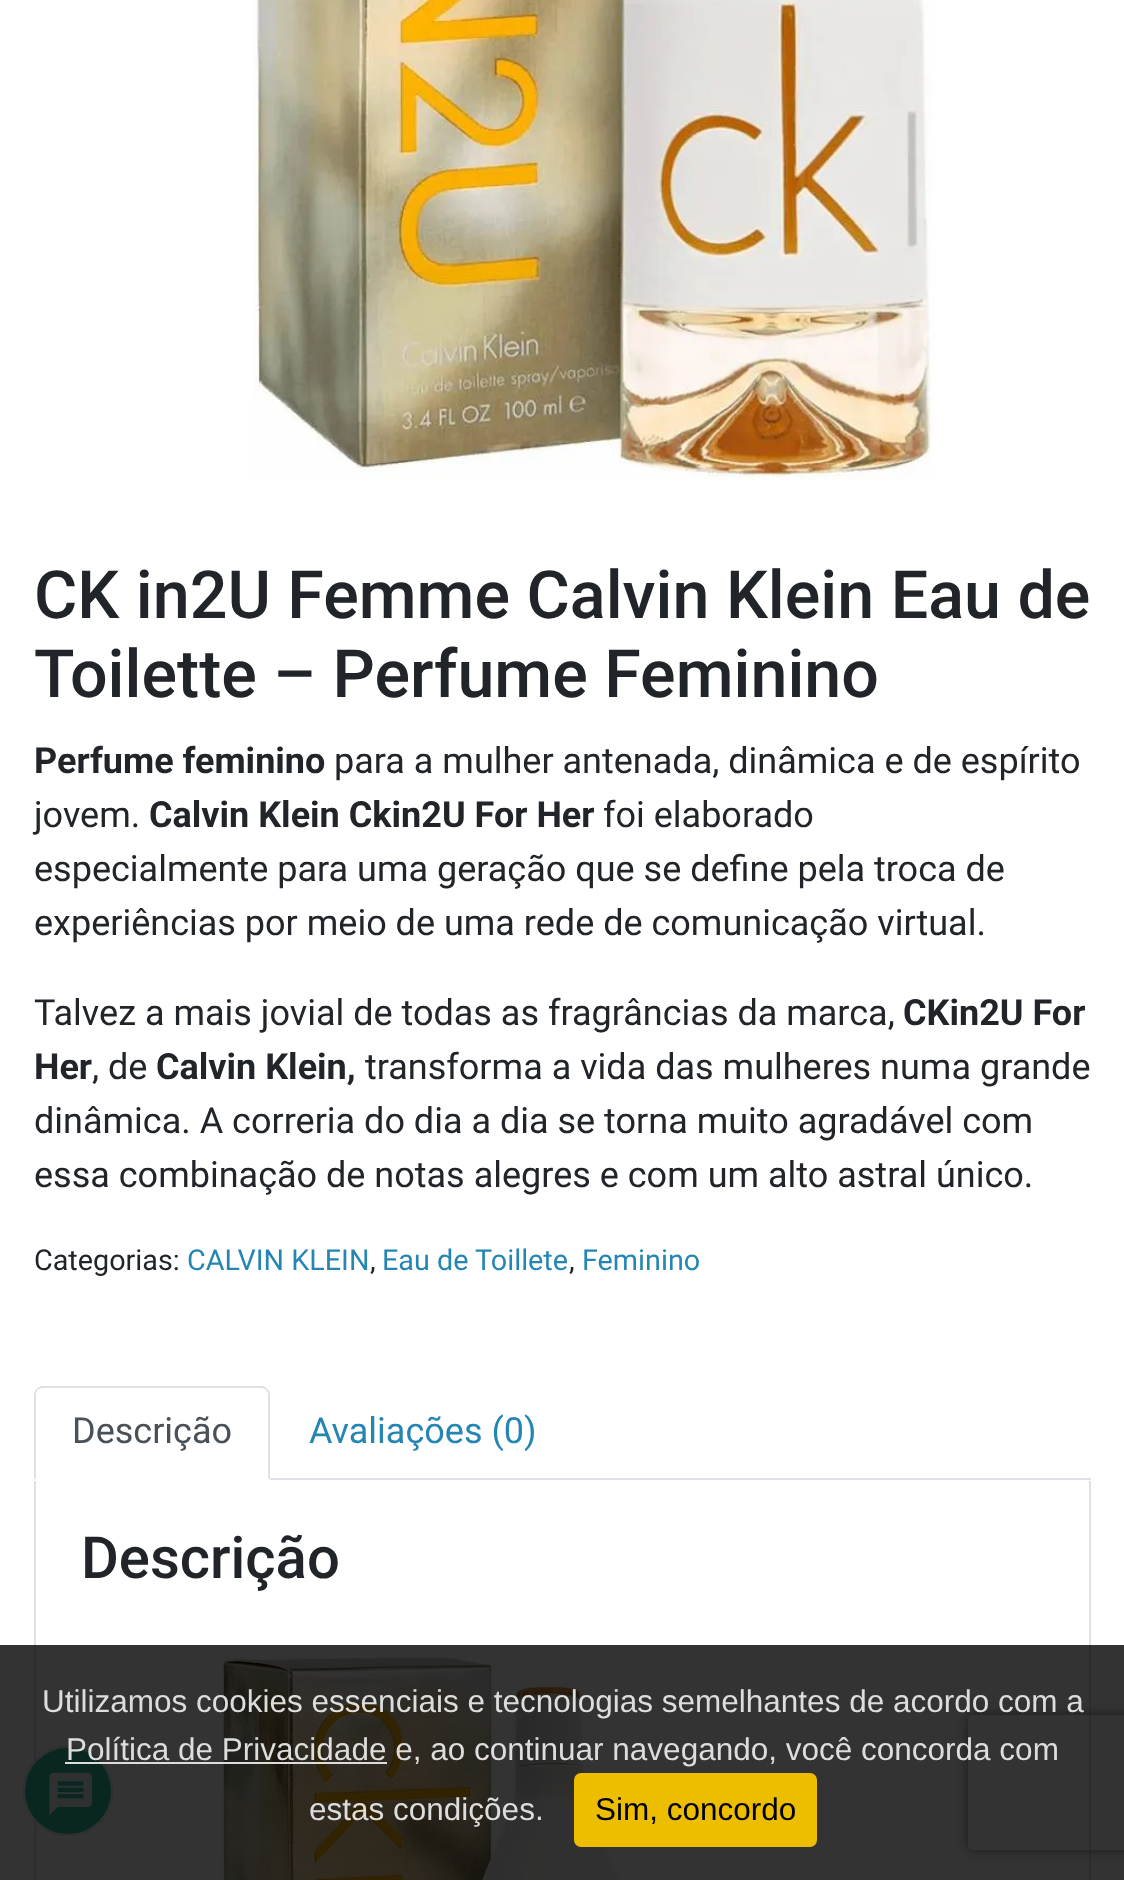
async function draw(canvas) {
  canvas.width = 1124
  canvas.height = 1880
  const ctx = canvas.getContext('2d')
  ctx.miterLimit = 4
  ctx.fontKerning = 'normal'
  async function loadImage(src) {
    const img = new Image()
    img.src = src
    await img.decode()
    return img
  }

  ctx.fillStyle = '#fff'
  ctx.fillRect(0, 0, 1124, 1880)
  ctx.fillStyle = '#333'
  ctx.fillRect(0, 1645, 1124, 235)
  ctx.drawImage(await loadImage('image0.png'), 253, 0, 682, 481)
  ctx.font = '500 66.4px Roboto'
  ctx.fillStyle = '#212529'
  ctx.fillText('CK in2U Femme Calvin Klein Eau de', 34, 618)
  ctx.fillText('Toilette – Perfume Feminino', 34, 697)
  ctx.font = 'bold 36px Roboto'
  ctx.fillText('Perfume feminino', 34, 773)
  ctx.font = '36px Roboto'
  ctx.fillText('para a mulher antenada, dinâmica e de espírito', 334, 773)
  ctx.fillText('jovem.', 34, 827)
  ctx.font = 'bold 36px Roboto'
  ctx.fillText('Calvin Klein Ckin2U For Her', 149, 827)
  ctx.font = '36px Roboto'
  ctx.fillText('foi elaborado', 603, 827)
  ctx.fillText('especialmente para uma geração que se define pela troca de', 34, 881)
  ctx.fillText('experiências por meio de uma rede de comunicação virtual.', 34, 935)
  ctx.fillText('Talvez a mais jovial de todas as fragrâncias da marca,', 34, 1025)
  ctx.font = 'bold 36px Roboto'
  ctx.fillText('CKin2U For', 903, 1025)
  ctx.fillText('Her', 34, 1079)
  ctx.font = '36px Roboto'
  ctx.fillText(', de', 92, 1079)
  ctx.font = 'bold 36px Roboto'
  ctx.fillText('Calvin Klein,', 156, 1079)
  ctx.font = '36px Roboto'
  ctx.fillText('transforma a vida das mulheres numa grande', 365, 1079)
  ctx.fillText('dinâmica. A correria do dia a dia se torna muito agradável com', 34, 1133)
  ctx.fillText('essa combinação de notas alegres e com um alto astral único.', 34, 1187)
  ctx.font = '28.75px Roboto'
  ctx.fillText('Categorias:', 34, 1270)
  ctx.fillStyle = '#2686b3'
  ctx.fillText('CALVIN KLEIN', 187, 1270)
  ctx.fillStyle = '#212529'
  ctx.fillText(',', 370, 1270)
  ctx.fillStyle = '#2686b3'
  ctx.fillText('Eau de Toillete', 382, 1270)
  ctx.fillStyle = '#212529'
  ctx.fillText(',', 569, 1270)
  ctx.fillStyle = '#2686b3'
  ctx.fillText('Feminino', 582, 1270)
  ctx.fillStyle = '#dee2e6'
  ctx.fillRect(270, 1478, 821, 2)
  ctx.beginPath()
  ctx.moveTo(43, 1386)
  ctx.bezierCurveTo(40, 1386, 38, 1387, 37, 1389)
  ctx.lineTo(38, 1390)
  ctx.bezierCurveTo(39, 1389, 41, 1388, 43, 1388)
  ctx.lineTo(261, 1388)
  ctx.bezierCurveTo(263, 1388, 265, 1389, 266, 1390)
  ctx.lineTo(267, 1389)
  ctx.bezierCurveTo(266, 1387, 264, 1386, 261, 1386)
  ctx.closePath()
  ctx.fill()
  ctx.beginPath()
  ctx.moveTo(270, 1480)
  ctx.lineTo(270, 1395)
  ctx.bezierCurveTo(270, 1392, 269, 1390, 267, 1389)
  ctx.lineTo(266, 1390)
  ctx.bezierCurveTo(267, 1391, 268, 1393, 268, 1395)
  ctx.lineTo(268, 1478)
  ctx.closePath()
  ctx.fill()
  ctx.fillStyle = '#fff'
  ctx.beginPath()
  ctx.moveTo(270, 1480)
  ctx.lineTo(34, 1480)
  ctx.lineTo(36, 1478)
  ctx.lineTo(268, 1478)
  ctx.closePath()
  ctx.fill()
  ctx.fillStyle = '#dee2e6'
  ctx.beginPath()
  ctx.moveTo(37, 1389)
  ctx.bezierCurveTo(35, 1390, 34, 1393, 34, 1395)
  ctx.lineTo(34, 1480)
  ctx.lineTo(36, 1478)
  ctx.lineTo(36, 1395)
  ctx.bezierCurveTo(36, 1393, 37, 1391, 38, 1390)
  ctx.closePath()
  ctx.fill()
  ctx.font = '36px Roboto'
  ctx.fillStyle = '#495057'
  ctx.fillText('Descrição', 72, 1443)
  ctx.fillStyle = '#2686b3'
  ctx.fillText('Avaliações (0)', 309, 1443)
  ctx.fillStyle = '#dee2e6'
  ctx.fillRect(1089, 1481, 2, 164)
  ctx.fillStyle = '#2c2d2e'
  ctx.fillRect(1089, 1645, 2, 235)
  ctx.fillStyle = '#dee2e6'
  ctx.fillRect(34, 1481, 2, 164)
  ctx.fillStyle = '#2c2d2e'
  ctx.fillRect(34, 1645, 2, 235)
  ctx.font = '500 58px Roboto'
  ctx.fillStyle = '#212529'
  ctx.fillText('Descrição', 81, 1578)
  ctx.drawImage(await loadImage('image1.png'), 221, 1654, 400, 226)
  ctx.save()
  ctx.beginPath()
  ctx.moveTo(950, 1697)
  ctx.lineTo(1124, 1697)
  ctx.lineTo(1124, 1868)
  ctx.lineTo(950, 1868)
  ctx.closePath()
  ctx.moveTo(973, 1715)
  ctx.lineTo(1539, 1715)
  ctx.bezierCurveTo(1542, 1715, 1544, 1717, 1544, 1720)
  ctx.lineTo(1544, 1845)
  ctx.bezierCurveTo(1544, 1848, 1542, 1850, 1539, 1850)
  ctx.lineTo(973, 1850)
  ctx.bezierCurveTo(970, 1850, 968, 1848, 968, 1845)
  ctx.lineTo(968, 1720)
  ctx.bezierCurveTo(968, 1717, 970, 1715, 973, 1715)
  ctx.closePath()
  ctx.clip('evenodd')
  ctx.fillStyle = '#1a1a1a'
  ctx.filter = 'blur(5.5px)'
  ctx.beginPath()
  ctx.roundRect(968, 1715, 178, 135, 5)
  ctx.fill()
  ctx.filter = 'none'
  ctx.restore()
  ctx.font = '31.5px Liberation Sans'
  ctx.fillStyle = '#ddd'
  ctx.fillText('Utilizamos cookies essenciais e tecnologias semelhantes de acordo com a', 42, 1712)
  ctx.fillStyle = '#06251fe6'
  ctx.beginPath()
  ctx.arc(68, 1791, 45, 0, 2 * Math.PI)
  ctx.fill()
  ctx.beginPath()
  ctx.arc(68, 1791, 44, 0, 2 * Math.PI)
  ctx.strokeStyle = '#333333e6'
  ctx.lineWidth = 2
  ctx.stroke()
  ctx.fillStyle = '#ddd'
  ctx.fillRect(65, 1762, 322, 2)
  ctx.fillText('Política de Privacidade e, ao continuar navegando, você concorda com', 66, 1760)
  ctx.fillText('estas condições.', 309, 1820)
  ctx.fillStyle = '#edbd00'
  ctx.beginPath()
  ctx.roundRect(574, 1773, 243, 74, 7)
  ctx.fill()
  ctx.fillStyle = '#000'
  ctx.fillText('Sim, concordo', 595, 1820)
  ctx.drawImage(await loadImage('image2.png'), 49, 1772, 43, 44)
}

draw(document.querySelector('canvas'))
